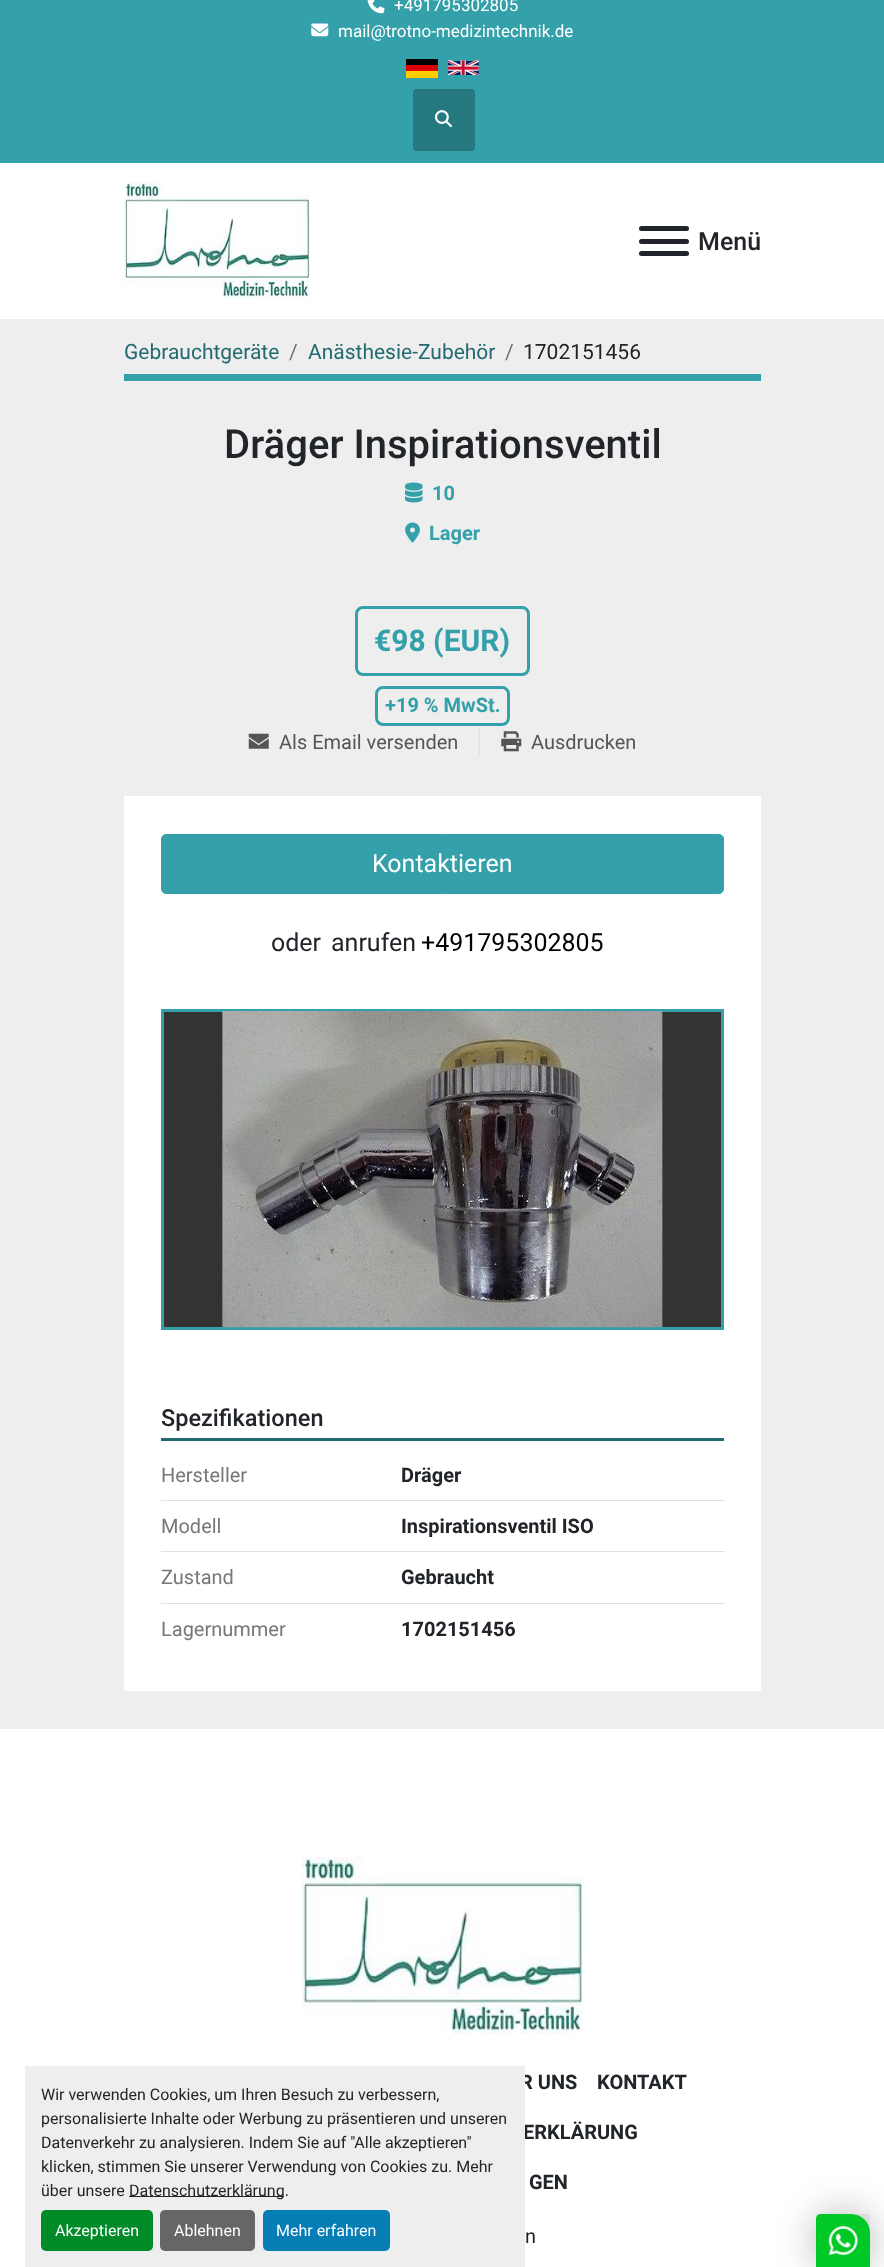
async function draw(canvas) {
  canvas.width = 884
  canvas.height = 2267
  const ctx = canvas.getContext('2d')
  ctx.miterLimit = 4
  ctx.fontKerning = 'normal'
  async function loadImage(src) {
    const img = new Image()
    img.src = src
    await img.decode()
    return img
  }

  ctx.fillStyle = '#eee'
  ctx.fillRect(0, 0, 884, 2267)
  ctx.fillStyle = '#34a1aa'
  ctx.fillRect(0, 0, 884, 163)
  ctx.drawImage(await loadImage('image0.png'), 367, 0, 18, 14)
  ctx.font = '17px Roboto'
  ctx.fillStyle = '#fff'
  ctx.fillText('+491795302805', 394, 11)
  ctx.drawImage(await loadImage('image1.png'), 311, 23, 18, 14)
  ctx.fillText('mail@trotno-medizintechnik.de', 338, 37)
  ctx.fillStyle = '#000'
  ctx.fillRect(406, 59, 32, 6)
  ctx.fillStyle = '#d00'
  ctx.fillRect(406, 65, 32, 6)
  ctx.fillStyle = '#ffce00'
  ctx.fillRect(406, 71, 32, 7)
  ctx.drawImage(await loadImage('image2.png'), 448, 60, 31, 15)
  ctx.fillStyle = '#277980'
  ctx.beginPath()
  ctx.roundRect(413, 89, 62, 62, 4)
  ctx.fill()
  ctx.drawImage(await loadImage('image3.png'), 435, 110, 17, 18)
  ctx.fillStyle = '#fff'
  ctx.fillRect(0, 163, 884, 156)
  ctx.drawImage(await loadImage('image4.png'), 123, 182, 187, 117)
  ctx.fillStyle = '#212529'
  ctx.beginPath()
  ctx.roundRect(639, 239, 50, 5, 2.5)
  ctx.fill()
  ctx.beginPath()
  ctx.roundRect(639, 226, 50, 5, 2.5)
  ctx.fill()
  ctx.beginPath()
  ctx.roundRect(639, 251, 50, 5, 2.5)
  ctx.fill()
  ctx.font = '500 25px Roboto'
  ctx.fillText('Menü', 698, 250)
  ctx.fillStyle = '#34a1aa'
  ctx.fillRect(124, 374, 637, 7)
  ctx.font = '21px Roboto'
  ctx.fillStyle = '#226a6f'
  ctx.fillText('Gebrauchtgeräte', 124, 359)
  ctx.fillStyle = '#6c757d'
  ctx.fillText('/', 289, 359)
  ctx.fillStyle = '#226a6f'
  ctx.fillText('Anästhesie-Zubehör', 308, 359)
  ctx.fillStyle = '#6c757d'
  ctx.fillText('/', 505, 359)
  ctx.fillStyle = '#212529'
  ctx.fillText('1702151456', 523, 359)
  ctx.font = '500 40px Roboto'
  ctx.fillText('Dräger Inspirationsventil', 224, 458)
  ctx.drawImage(await loadImage('image5.png'), 405, 482, 18, 21)
  ctx.font = 'bold 20px Roboto'
  ctx.fillStyle = '#34a1aa'
  ctx.fillText('10', 432, 500)
  ctx.drawImage(await loadImage('image6.png'), 405, 522, 15, 21)
  ctx.fillText('Lager', 429, 540)
  ctx.beginPath()
  ctx.roundRect(356.5, 607.5, 172, 67, 6.5)
  ctx.strokeStyle = '#34a1aa'
  ctx.lineWidth = 3
  ctx.stroke()
  ctx.font = 'bold 30px Roboto'
  ctx.fillText('€98 (EUR)', 374, 651)
  ctx.beginPath()
  ctx.roundRect(376.5, 687.5, 132, 37, 6.5)
  ctx.stroke()
  ctx.font = 'bold 20px Roboto'
  ctx.fillText('+19 % MwSt.', 385, 712)
  ctx.beginPath()
  ctx.moveTo(478, 728)
  ctx.bezierCurveTo(479, 729, 479.5, 730, 479.5, 731)
  ctx.lineTo(479.5, 754)
  ctx.bezierCurveTo(479.5, 755, 479, 756, 478, 757)
  ctx.strokeStyle = '#dee2e6'
  ctx.lineWidth = 1.2
  ctx.stroke()
  ctx.drawImage(await loadImage('image7.png'), 248, 733, 21, 16)
  ctx.font = '20px Roboto'
  ctx.fillStyle = '#555'
  ctx.fillText('Als Email versenden', 279, 749)
  ctx.drawImage(await loadImage('image8.png'), 501, 731, 21, 21)
  ctx.fillText('Ausdrucken', 531, 749)
  ctx.fillStyle = '#fff'
  ctx.fillRect(124, 796, 637, 895)
  ctx.fillStyle = '#34a1aa'
  ctx.beginPath()
  ctx.roundRect(161.5, 834.5, 562, 59, 4.5)
  ctx.fill()
  ctx.strokeStyle = '#34a1aa'
  ctx.lineWidth = 1
  ctx.stroke()
  ctx.font = '25px Roboto'
  ctx.fillStyle = '#fff'
  ctx.fillText('Kontaktieren', 372, 872)
  ctx.fillStyle = '#212529'
  ctx.fillText('oder', 271, 951)
  ctx.fillText('anrufen', 331, 951)
  ctx.fillStyle = '#000'
  ctx.fillText('+491795302805', 421, 951)
  ctx.fillStyle = '#333'
  ctx.beginPath()
  ctx.rect(162.5, 1010.5, 560, 318)
  ctx.fill()
  ctx.lineWidth = 3
  ctx.stroke()
  ctx.drawImage(await loadImage('image9.png'), 222, 1011, 441, 317)
  ctx.fillStyle = '#226a6f'
  ctx.fillRect(161, 1438, 563, 3)
  ctx.font = '500 23.5px Roboto'
  ctx.fillStyle = '#212529'
  ctx.fillText('Spezifikationen', 161, 1426)
  ctx.fillStyle = '#dee2e6'
  ctx.fillRect(161, 1500, 564, 1)
  ctx.font = '20px Roboto'
  ctx.fillStyle = '#777'
  ctx.fillText('Hersteller', 161, 1482)
  ctx.font = 'bold 20px Roboto'
  ctx.fillStyle = '#212529'
  ctx.fillText('Dräger', 401, 1482)
  ctx.fillStyle = '#dee2e6'
  ctx.fillRect(161, 1551, 564, 1)
  ctx.font = '20px Roboto'
  ctx.fillStyle = '#777'
  ctx.fillText('Modell', 161, 1533)
  ctx.font = 'bold 20px Roboto'
  ctx.fillStyle = '#212529'
  ctx.fillText('Inspirationsventil ISO', 401, 1533)
  ctx.fillStyle = '#dee2e6'
  ctx.fillRect(161, 1603, 564, 1)
  ctx.font = '20px Roboto'
  ctx.fillStyle = '#777'
  ctx.fillText('Zustand', 161, 1584)
  ctx.font = 'bold 20px Roboto'
  ctx.fillStyle = '#212529'
  ctx.fillText('Gebraucht', 401, 1584)
  ctx.font = '20px Roboto'
  ctx.fillStyle = '#777'
  ctx.fillText('Lagernummer', 161, 1636)
  ctx.font = 'bold 20px Roboto'
  ctx.fillStyle = '#212529'
  ctx.fillText('1702151456', 401, 1636)
  ctx.fillStyle = '#fff'
  ctx.fillRect(0, 1729, 884, 538)
  ctx.drawImage(await loadImage('image10.png'), 301, 1857, 282, 177)
  ctx.fillStyle = '#212529'
  ctx.fillText('R UNS', 520, 2089)
  ctx.fillText('KONTAKT', 597, 2089)
  ctx.fillText('ERKLÄRUNG', 523, 2139)
  ctx.fillText('GEN', 529, 2189)
  ctx.font = '20px Roboto'
  ctx.fillText('n', 525, 2243)
  ctx.fillStyle = '#eee'
  ctx.fillRect(25, 2066, 500, 201)
  ctx.font = '16px Roboto'
  ctx.fillStyle = '#212529'
  ctx.fillText('Wir verwenden Cookies, um Ihren Besuch zu verbessern,', 41, 2100)
  ctx.fillText('personalisierte Inhalte oder Werbung zu präsentieren und unseren', 41, 2124)
  ctx.fillText('Datenverkehr zu analysieren. Indem Sie auf "Alle akzeptieren"', 41, 2148)
  ctx.fillText('klicken, stimmen Sie unserer Verwendung von Cookies zu. Mehr', 41, 2172)
  ctx.fillText('über unsere', 41, 2196)
  ctx.fillRect(129, 2196, 155, 1)
  ctx.fillText('Datenschutzerklärung.', 129, 2196)
  ctx.fillStyle = '#008a28'
  ctx.beginPath()
  ctx.roundRect(41, 2210, 112, 41, 5)
  ctx.fill()
  ctx.fillStyle = '#fff'
  ctx.fillText('Akzeptieren', 55, 2236)
  ctx.fillStyle = '#666'
  ctx.beginPath()
  ctx.roundRect(160, 2210, 95, 41, 5)
  ctx.fill()
  ctx.fillStyle = '#fff'
  ctx.fillText('Ablehnen', 174, 2236)
  ctx.fillStyle = '#057eb6'
  ctx.beginPath()
  ctx.roundRect(263, 2210, 127, 41, 5)
  ctx.fill()
  ctx.fillStyle = '#fff'
  ctx.fillText('Mehr erfahren', 276, 2236)
  ctx.fillStyle = '#0000004d'
  ctx.filter = 'blur(19px)'
  ctx.beginPath()
  ctx.roundRect(816, 2214, 54, 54, 19)
  ctx.fill()
  ctx.filter = 'none'
  ctx.fillStyle = '#00d32a'
  ctx.beginPath()
  ctx.moveTo(821, 2214)
  ctx.lineTo(851, 2214)
  ctx.bezierCurveTo(861.5, 2214, 870, 2222.5, 870, 2233)
  ctx.lineTo(870, 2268)
  ctx.lineTo(816, 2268)
  ctx.lineTo(816, 2219)
  ctx.bezierCurveTo(816, 2216, 818, 2214, 821, 2214)
  ctx.closePath()
  ctx.fill()
  ctx.fillStyle = '#0000000d'
  ctx.fillRect(816, 2214, 54, 53)
  ctx.drawImage(await loadImage('image11.png'), 828, 2225, 30, 31)
}

draw(document.querySelector('canvas'))
